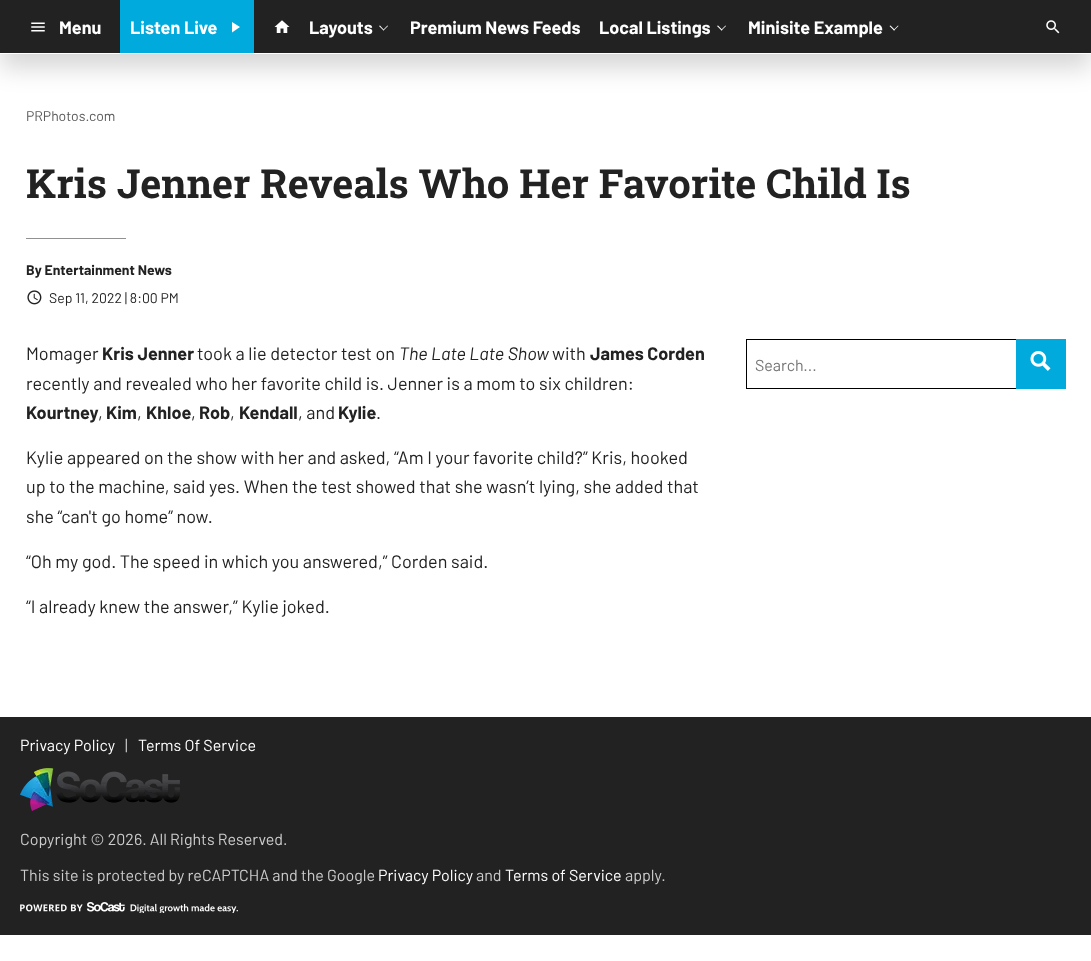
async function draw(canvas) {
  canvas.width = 1091
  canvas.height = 961
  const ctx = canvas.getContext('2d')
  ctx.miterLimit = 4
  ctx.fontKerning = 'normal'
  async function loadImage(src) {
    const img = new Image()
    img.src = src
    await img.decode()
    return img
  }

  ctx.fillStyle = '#fff'
  ctx.fillRect(0, 0, 1091, 961)
  ctx.fillStyle = '#00000029'
  ctx.filter = 'blur(12.5px)'
  ctx.beginPath()
  ctx.rect(0, 14, 1091, 54)
  ctx.fill()
  ctx.filter = 'none'
  ctx.fillStyle = '#222'
  ctx.fillRect(0, 0, 1091, 53)
  ctx.fillStyle = '#fff'
  ctx.fillRect(0, 53, 1091, 1)
  ctx.drawImage(await loadImage('image0.png'), 31, 22, 14, 10)
  ctx.font = 'bold 18px Barlow'
  ctx.fillText('Menu', 59, 34)
  ctx.fillStyle = '#00aadc'
  ctx.fillRect(120, 0, 134, 53)
  ctx.fillStyle = '#fff'
  ctx.fillText('Listen Live', 130, 34)
  ctx.beginPath()
  ctx.moveTo(232, 22)
  ctx.lineTo(232, 32.5)
  ctx.lineTo(240, 27)
  ctx.closePath()
  ctx.fill()
  ctx.drawImage(await loadImage('image1.png'), 274, 20, 16, 13)
  ctx.fillText('Layouts', 309, 34)
  ctx.beginPath()
  ctx.moveTo(388, 26)
  ctx.lineTo(383.5, 30.5)
  ctx.lineTo(383, 30)
  ctx.lineTo(387.5, 25.5)
  ctx.closePath()
  ctx.fill()
  ctx.beginPath()
  ctx.moveTo(384, 30)
  ctx.lineTo(383.5, 30.5)
  ctx.lineTo(379, 26)
  ctx.lineTo(380, 25.5)
  ctx.closePath()
  ctx.fill()
  ctx.fillText('Premium News Feeds', 410, 34)
  ctx.fillText('Local Listings', 599, 34)
  ctx.beginPath()
  ctx.moveTo(726, 26)
  ctx.lineTo(721.5, 30.5)
  ctx.lineTo(721, 30)
  ctx.lineTo(725.5, 25.5)
  ctx.closePath()
  ctx.fill()
  ctx.beginPath()
  ctx.moveTo(722.5, 30)
  ctx.lineTo(721.5, 30.5)
  ctx.lineTo(717, 26)
  ctx.lineTo(718, 25.5)
  ctx.closePath()
  ctx.fill()
  ctx.fillText('Minisite Example', 748, 34)
  ctx.beginPath()
  ctx.moveTo(898.5, 26)
  ctx.lineTo(894, 30.5)
  ctx.lineTo(893.5, 30)
  ctx.lineTo(898, 25.5)
  ctx.closePath()
  ctx.fill()
  ctx.beginPath()
  ctx.moveTo(895, 30)
  ctx.lineTo(894, 30.5)
  ctx.lineTo(889.5, 26)
  ctx.lineTo(890.5, 25.5)
  ctx.closePath()
  ctx.fill()
  ctx.drawImage(await loadImage('image2.png'), 1046, 20, 14, 14)
  ctx.font = '14px Barlow'
  ctx.fillStyle = '#595959'
  ctx.fillText('PRPhotos.com', 26, 121)
  ctx.font = 'bold 40px Roboto Slab'
  ctx.fillStyle = '#222'
  ctx.fillText('Kris Jenner Reveals Who Her Favorite Child Is', 26, 198)
  ctx.fillStyle = '#919191'
  ctx.fillRect(26, 238, 100, 1)
  ctx.font = 'bold 14px Barlow'
  ctx.fillStyle = '#222'
  ctx.fillText('By Entertainment News', 26, 275)
  ctx.drawImage(await loadImage('image3.png'), 27, 290, 15, 15)
  ctx.font = '14px Barlow'
  ctx.fillText('Sep 11, 2022 | 8:00 PM', 49, 303)
  ctx.font = '18px Barlow'
  ctx.fillText('Momager', 26, 360)
  ctx.font = 'bold 18px Barlow'
  ctx.fillText('Kris Jenner', 102, 360)
  ctx.font = '18px Barlow'
  ctx.fillText('took a lie detector test on', 197, 360)
  ctx.font = 'italic 18px Barlow'
  ctx.fillText('The Late Late Show', 399, 360)
  ctx.font = '18px Barlow'
  ctx.fillText('with', 552, 360)
  ctx.font = 'bold 18px Barlow'
  ctx.fillText('James Corden', 590, 360)
  ctx.font = '18px Barlow'
  ctx.fillText('recently and revealed who her favorite child is. Jenner is a mom to six children:', 26, 390)
  ctx.font = 'bold 18px Barlow'
  ctx.fillText('Kourtney', 26, 419)
  ctx.font = '18px Barlow'
  ctx.fillText(',', 98, 419)
  ctx.font = 'bold 18px Barlow'
  ctx.fillText('Kim', 106, 419)
  ctx.font = '18px Barlow'
  ctx.fillText(',', 137, 419)
  ctx.font = 'bold 18px Barlow'
  ctx.fillText('Khloe', 146, 419)
  ctx.font = '18px Barlow'
  ctx.fillText(',', 191, 419)
  ctx.font = 'bold 18px Barlow'
  ctx.fillText('Rob', 199, 419)
  ctx.font = '18px Barlow'
  ctx.fillText(',', 230, 419)
  ctx.font = 'bold 18px Barlow'
  ctx.fillText('Kendall', 239, 419)
  ctx.font = '18px Barlow'
  ctx.fillText(', and', 298, 419)
  ctx.font = 'bold 18px Barlow'
  ctx.fillText('Kylie', 338, 419)
  ctx.font = '18px Barlow'
  ctx.fillText('.', 376, 419)
  ctx.fillText('Kylie appeared on the show with her and asked, “Am I your favorite child?” Kris, hooked', 26, 464)
  ctx.fillText('up to the machine, said yes. When the test showed that she wasn’t lying, she added that', 26, 493)
  ctx.fillText('she “can\'t go home” now.', 26, 523)
  ctx.fillText('“Oh my god. The speed in which you answered,” Corden said.', 26, 568)
  ctx.fillText('“I already knew the answer,” Kylie joked.', 26, 613)
  ctx.strokeStyle = '#000'
  ctx.strokeRect(746.5, 339.5, 319, 49)
  ctx.font = '16px Barlow'
  ctx.fillStyle = '#757575'
  ctx.fillText('Search...', 755, 371)
  ctx.fillStyle = '#00aadc'
  ctx.fillRect(1016, 339, 50, 50)
  ctx.drawImage(await loadImage('image4.png'), 1030, 351, 21, 20)
  ctx.fillStyle = '#222'
  ctx.fillRect(0, 717, 1091, 218)
  ctx.fillStyle = '#fff'
  ctx.fillText('Privacy Policy', 20, 751)
  ctx.fillStyle = '#ccc'
  ctx.fillText('|', 125, 751)
  ctx.fillStyle = '#fff'
  ctx.fillText('Terms Of Service', 138, 751)
  ctx.drawImage(await loadImage('image5.png'), 20, 768, 160, 43)
  ctx.fillStyle = '#ccc'
  ctx.fillText('Copyright © 2026. All Rights Reserved.', 20, 845)
  ctx.fillText('This site is protected by reCAPTCHA and the Google', 20, 881)
  ctx.fillStyle = '#fff'
  ctx.fillText('Privacy Policy', 378, 881)
  ctx.fillStyle = '#ccc'
  ctx.fillText('and', 476, 881)
  ctx.fillStyle = '#fff'
  ctx.fillText('Terms of Service', 505, 881)
  ctx.fillStyle = '#ccc'
  ctx.fillText('apply.', 625, 881)
  ctx.drawImage(await loadImage('image6.png'), 20, 902, 218, 11)
}

draw(document.querySelector('canvas'))
